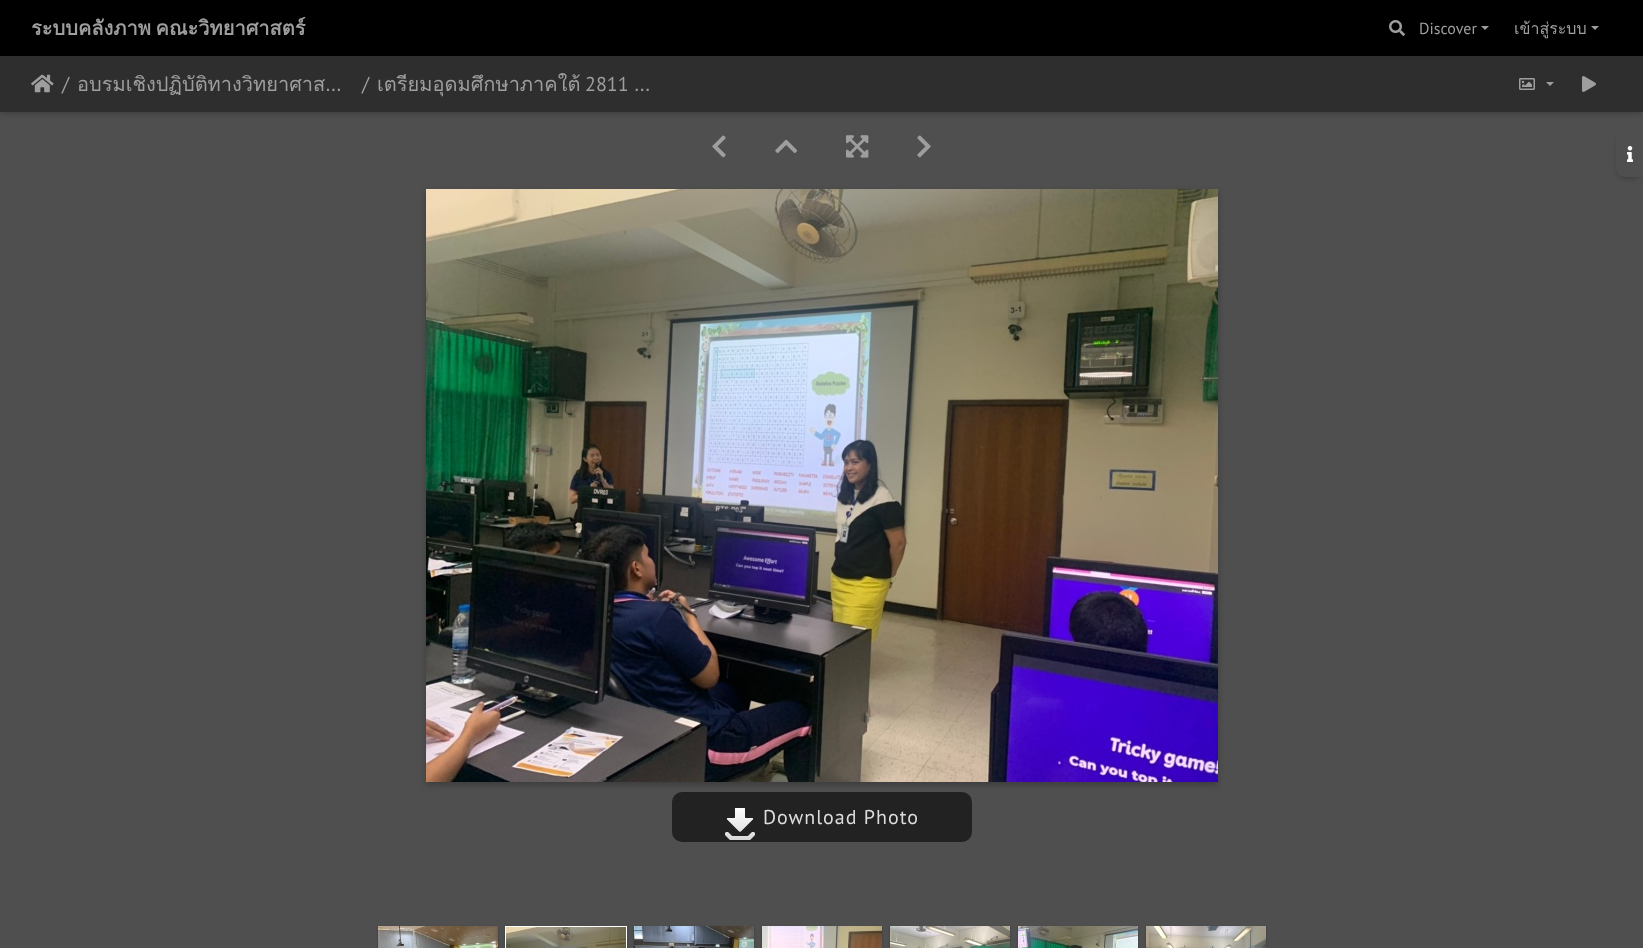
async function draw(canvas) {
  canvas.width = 1643
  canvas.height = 948
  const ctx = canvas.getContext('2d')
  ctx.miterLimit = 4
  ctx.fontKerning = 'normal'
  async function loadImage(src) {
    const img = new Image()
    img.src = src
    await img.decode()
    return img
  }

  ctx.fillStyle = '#4f4f4f'
  ctx.fillRect(0, 0, 1643, 948)
  ctx.fillStyle = '#00000033'
  ctx.filter = 'blur(2.5px)'
  ctx.beginPath()
  ctx.rect(1, 60, 1641, 54)
  ctx.fill()
  ctx.filter = 'none'
  ctx.fillStyle = '#000'
  ctx.fillRect(0, 0, 1643, 56)
  ctx.wordSpacing = '-2px'
  ctx.font = 'bold 20px Loma'
  ctx.fillStyle = '#9e9e9e'
  ctx.fillText('ระบบคลังภาพ คณะวิทยาศาสตร์', 31, 35)
  ctx.drawImage(await loadImage('image0.png'), 1389, 20, 16, 16)
  ctx.wordSpacing = '0px'
  ctx.font = '16px PT Sans'
  ctx.fillText('Discover', 1419, 34)
  ctx.beginPath()
  ctx.moveTo(1481, 26)
  ctx.lineTo(1489, 26)
  ctx.lineTo(1485, 30)
  ctx.closePath()
  ctx.fill()
  ctx.font = '16px Loma'
  ctx.fillText('เข้าสู่ระบบ', 1514, 34)
  ctx.beginPath()
  ctx.moveTo(1591, 26)
  ctx.lineTo(1599, 26)
  ctx.lineTo(1595, 30)
  ctx.closePath()
  ctx.fill()
  ctx.fillStyle = '#2e2e2e'
  ctx.fillRect(0, 56, 1643, 56)
  ctx.drawImage(await loadImage('image1.png'), 31, 74, 23, 19)
  ctx.font = '20px PT Sans'
  ctx.fillStyle = '#9e9e9e'
  ctx.fillText('/', 62, 91)
  ctx.wordSpacing = '-1px'
  ctx.font = '20px Loma'
  ctx.fillText('อบรมเชิงปฏิบัติทางวิทยาศาส…', 77, 91)
  ctx.wordSpacing = '0px'
  ctx.font = '20px PT Sans'
  ctx.fillText('/', 362, 91)
  ctx.font = '20px Loma'
  ctx.fillText('เตรียมอุดมศึกษาภาคใต้', 377, 91)
  ctx.font = '20px PT Sans'
  ctx.fillText('2811', 585, 91)
  ctx.font = '20px Loma'
  ctx.fillText('…', 634, 91)
  ctx.drawImage(await loadImage('image2.png'), 1519, 78, 16, 12)
  ctx.beginPath()
  ctx.moveTo(1546, 82)
  ctx.lineTo(1554, 82)
  ctx.lineTo(1550, 86)
  ctx.closePath()
  ctx.fill()
  ctx.drawImage(await loadImage('image3.png'), 1582, 76, 14, 16)
  ctx.drawImage(await loadImage('image4.png'), 712, 135, 14, 23)
  ctx.drawImage(await loadImage('image5.png'), 775, 139, 22, 14)
  ctx.drawImage(await loadImage('image6.png'), 846, 135, 23, 23)
  ctx.drawImage(await loadImage('image7.png'), 917, 135, 14, 23)
  ctx.fillStyle = '#00000033'
  ctx.filter = 'blur(2.5px)'
  ctx.beginPath()
  ctx.roundRect(1617, 135, 25, 44, 9)
  ctx.fill()
  ctx.filter = 'none'
  ctx.fillStyle = '#4f4f4f'
  ctx.beginPath()
  ctx.roundRect(1616, 131, 27, 46, [10, 0, 0, 10])
  ctx.fill()
  ctx.beginPath()
  ctx.moveTo(1626, 131)
  ctx.lineTo(1643, 131)
  ctx.lineTo(1643, 177)
  ctx.lineTo(1626, 177)
  ctx.bezierCurveTo(1620, 177, 1616, 173, 1616, 167)
  ctx.lineTo(1616, 141)
  ctx.bezierCurveTo(1616, 135, 1620, 131, 1626, 131)
  ctx.closePath()
  ctx.moveTo(1626, 132)
  ctx.lineTo(1643, 132)
  ctx.lineTo(1643, 176)
  ctx.lineTo(1626, 176)
  ctx.bezierCurveTo(1621, 176, 1617, 172, 1617, 167)
  ctx.lineTo(1617, 141)
  ctx.bezierCurveTo(1617, 136, 1621, 132, 1626, 132)
  ctx.closePath()
  ctx.fill('evenodd')
  ctx.drawImage(await loadImage('image8.png'), 1627, 146, 6, 16)
  ctx.fillStyle = '#222'
  ctx.beginPath()
  ctx.roundRect(672, 792, 300, 50, 10)
  ctx.fill()
  ctx.fillStyle = '#0000003b'
  ctx.filter = 'blur(3px)'
  ctx.beginPath()
  ctx.rect(426, 192, 792, 593)
  ctx.fill()
  ctx.filter = 'none'
  ctx.drawImage(await loadImage('image9.png'), 426, 189, 792, 593)
  ctx.drawImage(await loadImage('image10.png'), 725, 808, 30, 32)
  ctx.letterSpacing = '1px'
  ctx.font = '20px PT Sans'
  ctx.fillStyle = '#ddd'
  ctx.fillText('Download Photo', 763, 824)
  ctx.fillStyle = '#0000003d'
  ctx.filter = 'blur(1px)'
  ctx.beginPath()
  ctx.rect(378, 927, 120, 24)
  ctx.fill()
  ctx.filter = 'none'
  ctx.drawImage(await loadImage('image11.png'), 378, 926, 120, 22)
  ctx.filter = 'blur(1px)'
  ctx.beginPath()
  ctx.rect(505, 927, 122, 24)
  ctx.fill()
  ctx.filter = 'none'
  ctx.strokeStyle = '#fff'
  ctx.strokeRect(505.5, 926.5, 121, 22)
  ctx.drawImage(await loadImage('image12.png'), 506, 927, 120, 21)
  ctx.filter = 'blur(1px)'
  ctx.beginPath()
  ctx.rect(634, 927, 120, 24)
  ctx.fill()
  ctx.filter = 'none'
  ctx.drawImage(await loadImage('image13.png'), 634, 926, 120, 22)
  ctx.filter = 'blur(1px)'
  ctx.beginPath()
  ctx.rect(762, 927, 120, 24)
  ctx.fill()
  ctx.filter = 'none'
  ctx.drawImage(await loadImage('image14.png'), 762, 926, 120, 22)
  ctx.filter = 'blur(1px)'
  ctx.beginPath()
  ctx.rect(890, 927, 120, 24)
  ctx.fill()
  ctx.filter = 'none'
  ctx.drawImage(await loadImage('image15.png'), 890, 926, 120, 22)
  ctx.filter = 'blur(1px)'
  ctx.beginPath()
  ctx.rect(1018, 927, 120, 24)
  ctx.fill()
  ctx.filter = 'none'
  ctx.drawImage(await loadImage('image16.png'), 1018, 926, 120, 22)
  ctx.filter = 'blur(1px)'
  ctx.beginPath()
  ctx.rect(1146, 927, 120, 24)
  ctx.fill()
  ctx.filter = 'none'
  ctx.drawImage(await loadImage('image17.png'), 1146, 926, 120, 22)
}

draw(document.querySelector('canvas'))
